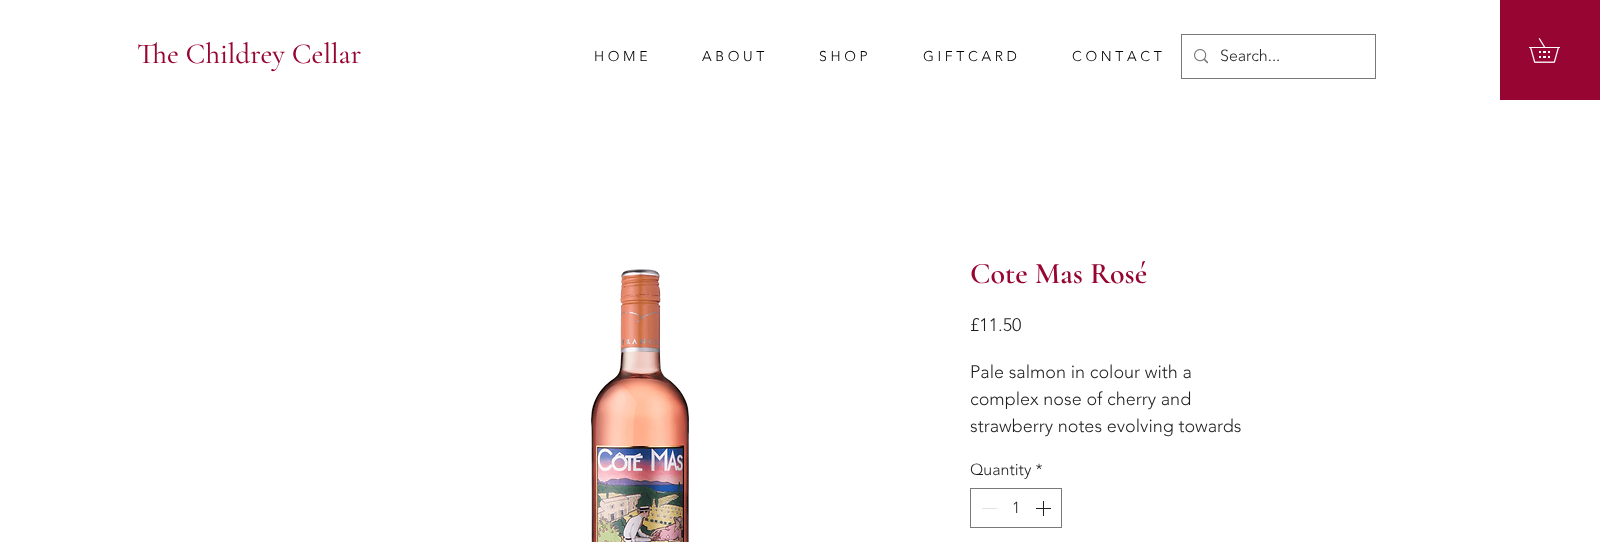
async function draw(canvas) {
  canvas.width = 1600
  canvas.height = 542
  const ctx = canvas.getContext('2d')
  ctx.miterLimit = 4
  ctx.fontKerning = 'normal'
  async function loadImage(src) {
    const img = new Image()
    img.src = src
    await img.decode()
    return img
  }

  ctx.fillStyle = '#fff'
  ctx.fillRect(0, 0, 1600, 542)
  ctx.font = '500 29px Cormorant Garamond'
  ctx.fillStyle = '#970532'
  ctx.fillText('The Childrey Cellar', 137, 63)
  ctx.font = '300 14px "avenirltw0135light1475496"'
  ctx.fillStyle = '#000'
  ctx.fillText('H O M E', 594, 61)
  ctx.fillText('A B O U T', 702, 61)
  ctx.fillText('S H O P', 819, 61)
  ctx.fillText('G I F T C A R D', 923, 61)
  ctx.fillText('C O N T A C T', 1072, 61)
  ctx.strokeStyle = '#797979'
  ctx.strokeRect(1181.5, 34.5, 194, 44)
  ctx.drawImage(await loadImage('image0.png'), 1194, 49, 14, 15)
  ctx.font = '300 16px "avenirltw0135light1475496"'
  ctx.fillStyle = '#1f1f1f'
  ctx.fillText('Search...', 1220, 61)
  ctx.fillStyle = '#970532'
  ctx.fillRect(1500, 0, 100, 100)
  ctx.drawImage(await loadImage('image1.png'), 1529, 38, 31, 25)
  ctx.drawImage(await loadImage('image2.png'), 591, 269, 98, 273)
  ctx.font = '600 30px Cormorant Garamond'
  ctx.fillText('Cote Mas Rosé', 970, 283)
  ctx.font = '300 18px "avenirltw0135light1475496"'
  ctx.fillStyle = '#1f1f1f'
  ctx.fillText('£11.50', 970, 331)
  ctx.fillText('Pale salmon in colour with a', 970, 378)
  ctx.fillText('complex nose of cherry and', 970, 405)
  ctx.fillText('strawberry notes evolving towards', 970, 432)
  ctx.font = '300 16px "avenirltw0135light1475496"'
  ctx.fillText('Quantity *', 970, 475)
  ctx.strokeRect(970.5, 488.5, 91, 39)
  ctx.fillStyle = '#e3e3e3'
  ctx.fillRect(982, 508, 15, 1)
  ctx.fillStyle = '#1f1f1f'
  ctx.fillText('1', 1012, 513)
  ctx.drawImage(await loadImage('image3.png'), 1036, 501, 15, 15)
}

draw(document.querySelector('canvas'))
